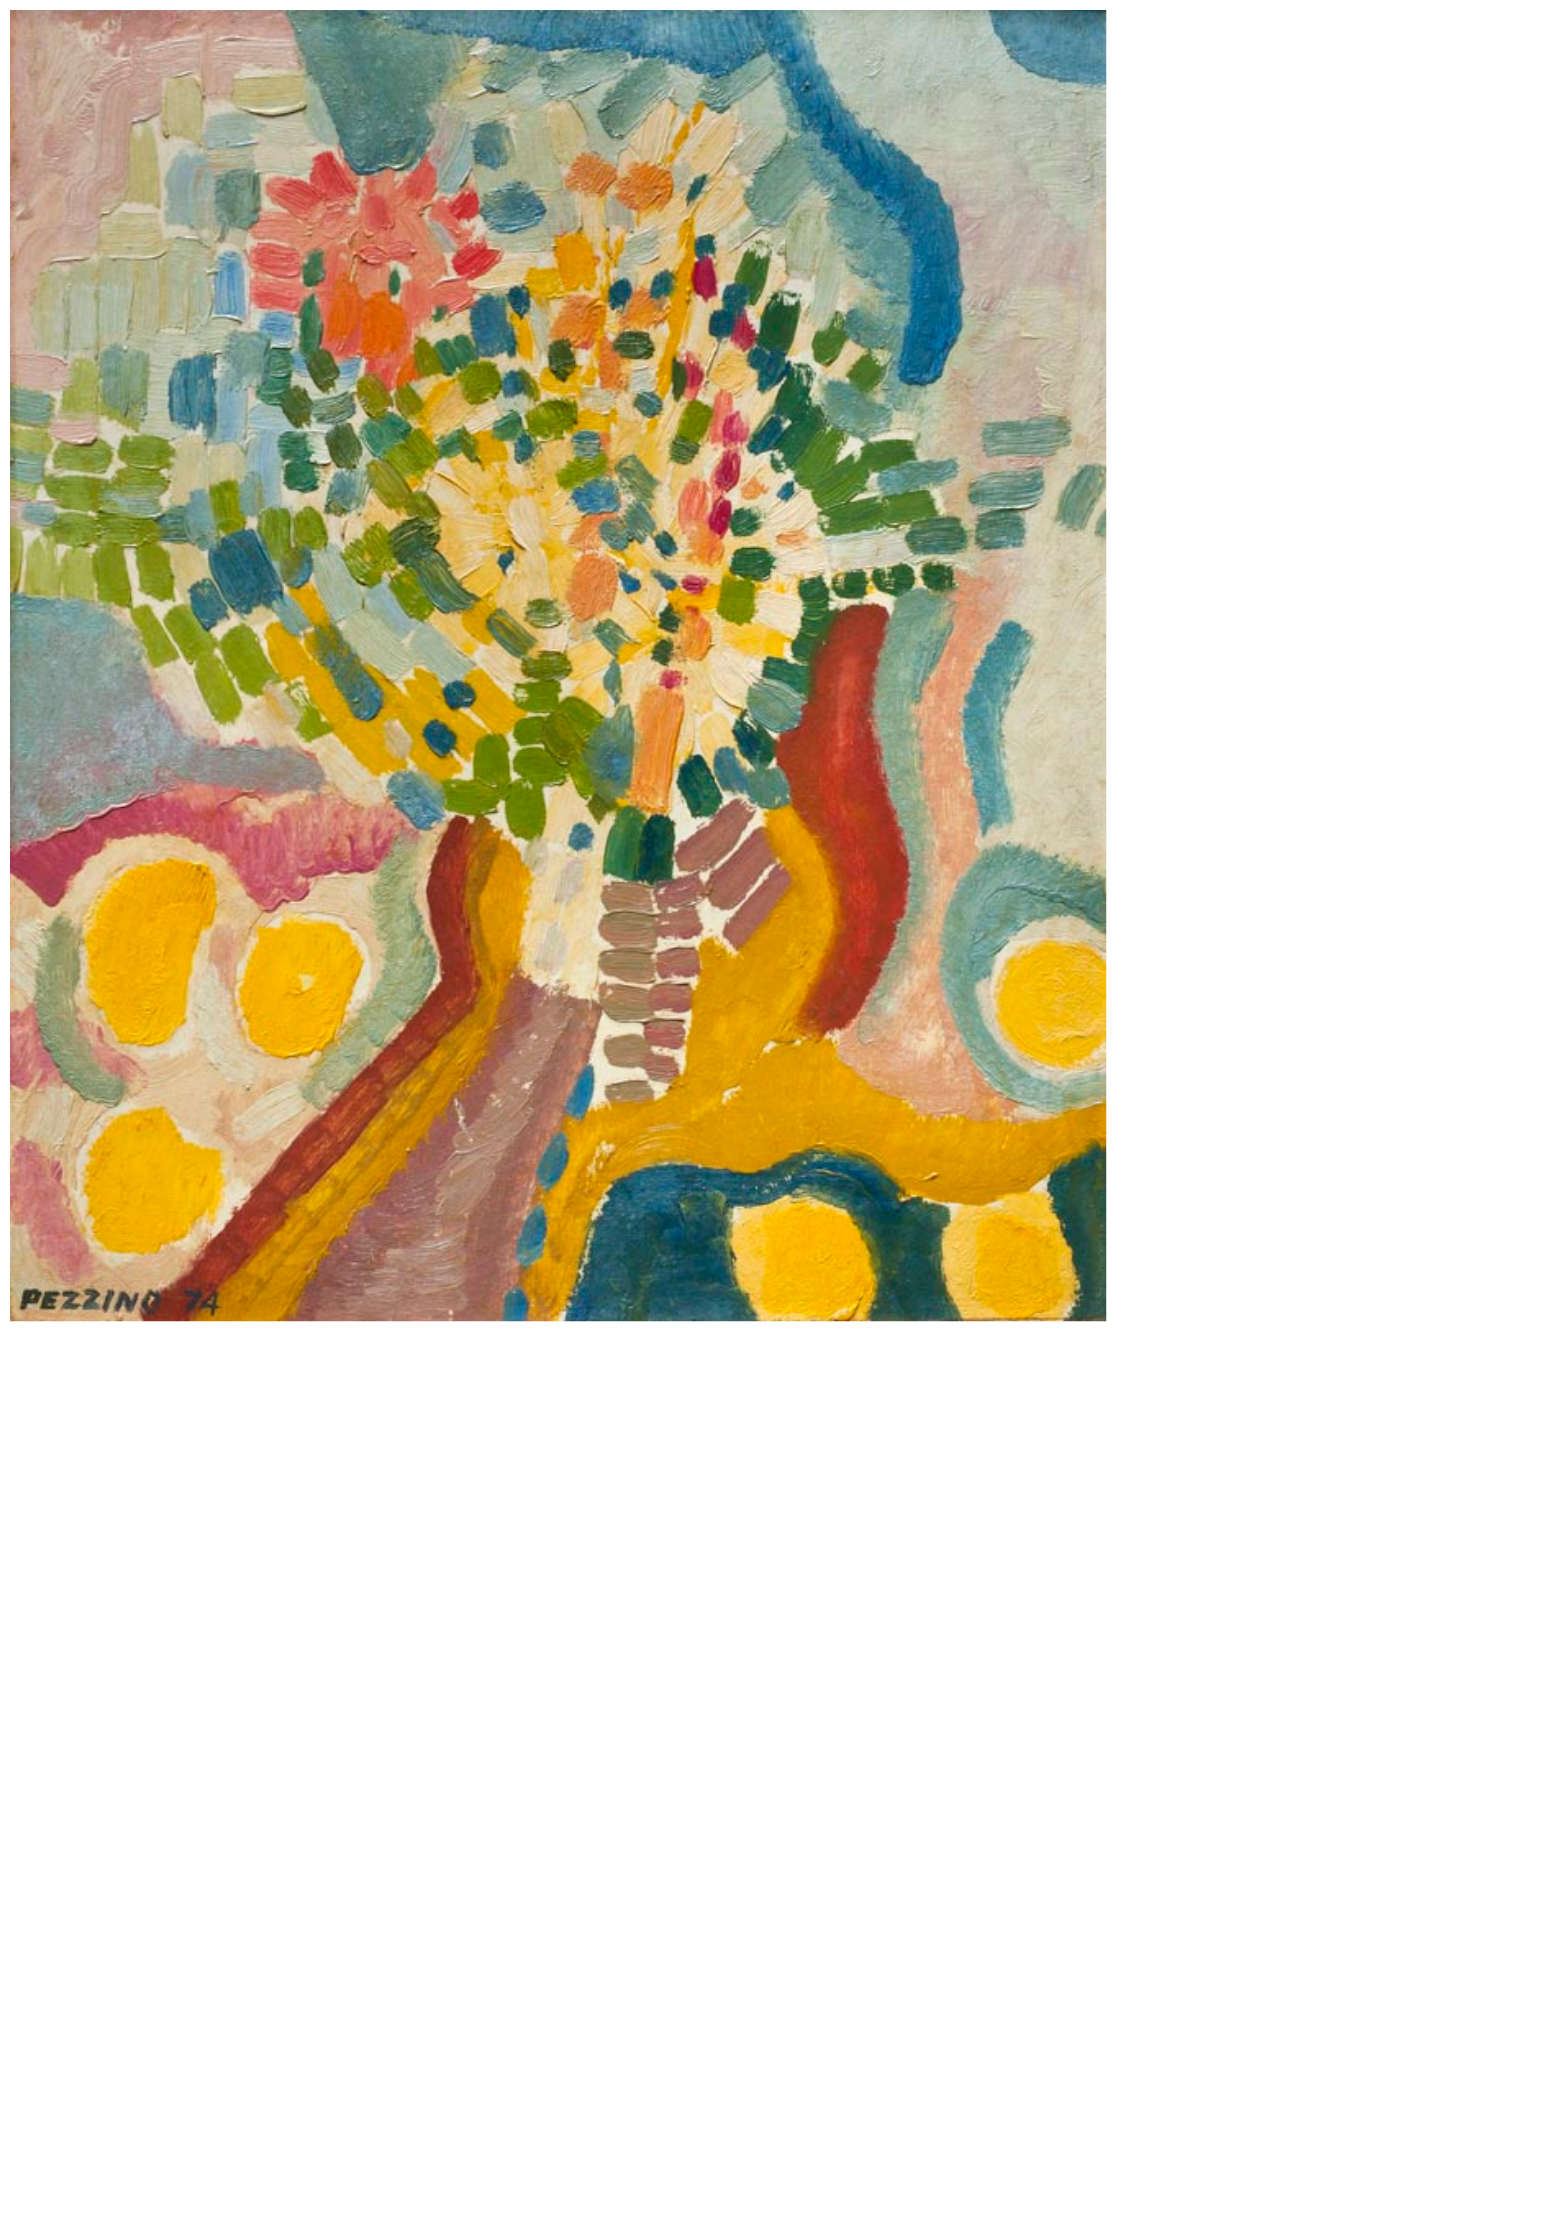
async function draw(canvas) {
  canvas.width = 1551
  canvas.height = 2219
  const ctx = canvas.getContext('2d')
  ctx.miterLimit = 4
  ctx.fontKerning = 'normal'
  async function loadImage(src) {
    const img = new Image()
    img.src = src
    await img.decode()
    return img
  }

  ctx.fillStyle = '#fff'
  ctx.fillRect(0, 0, 1551, 2219)
  ctx.drawImage(await loadImage('image0.png'), 10, 10, 1097, 1312)
}

draw(document.querySelector('canvas'))
